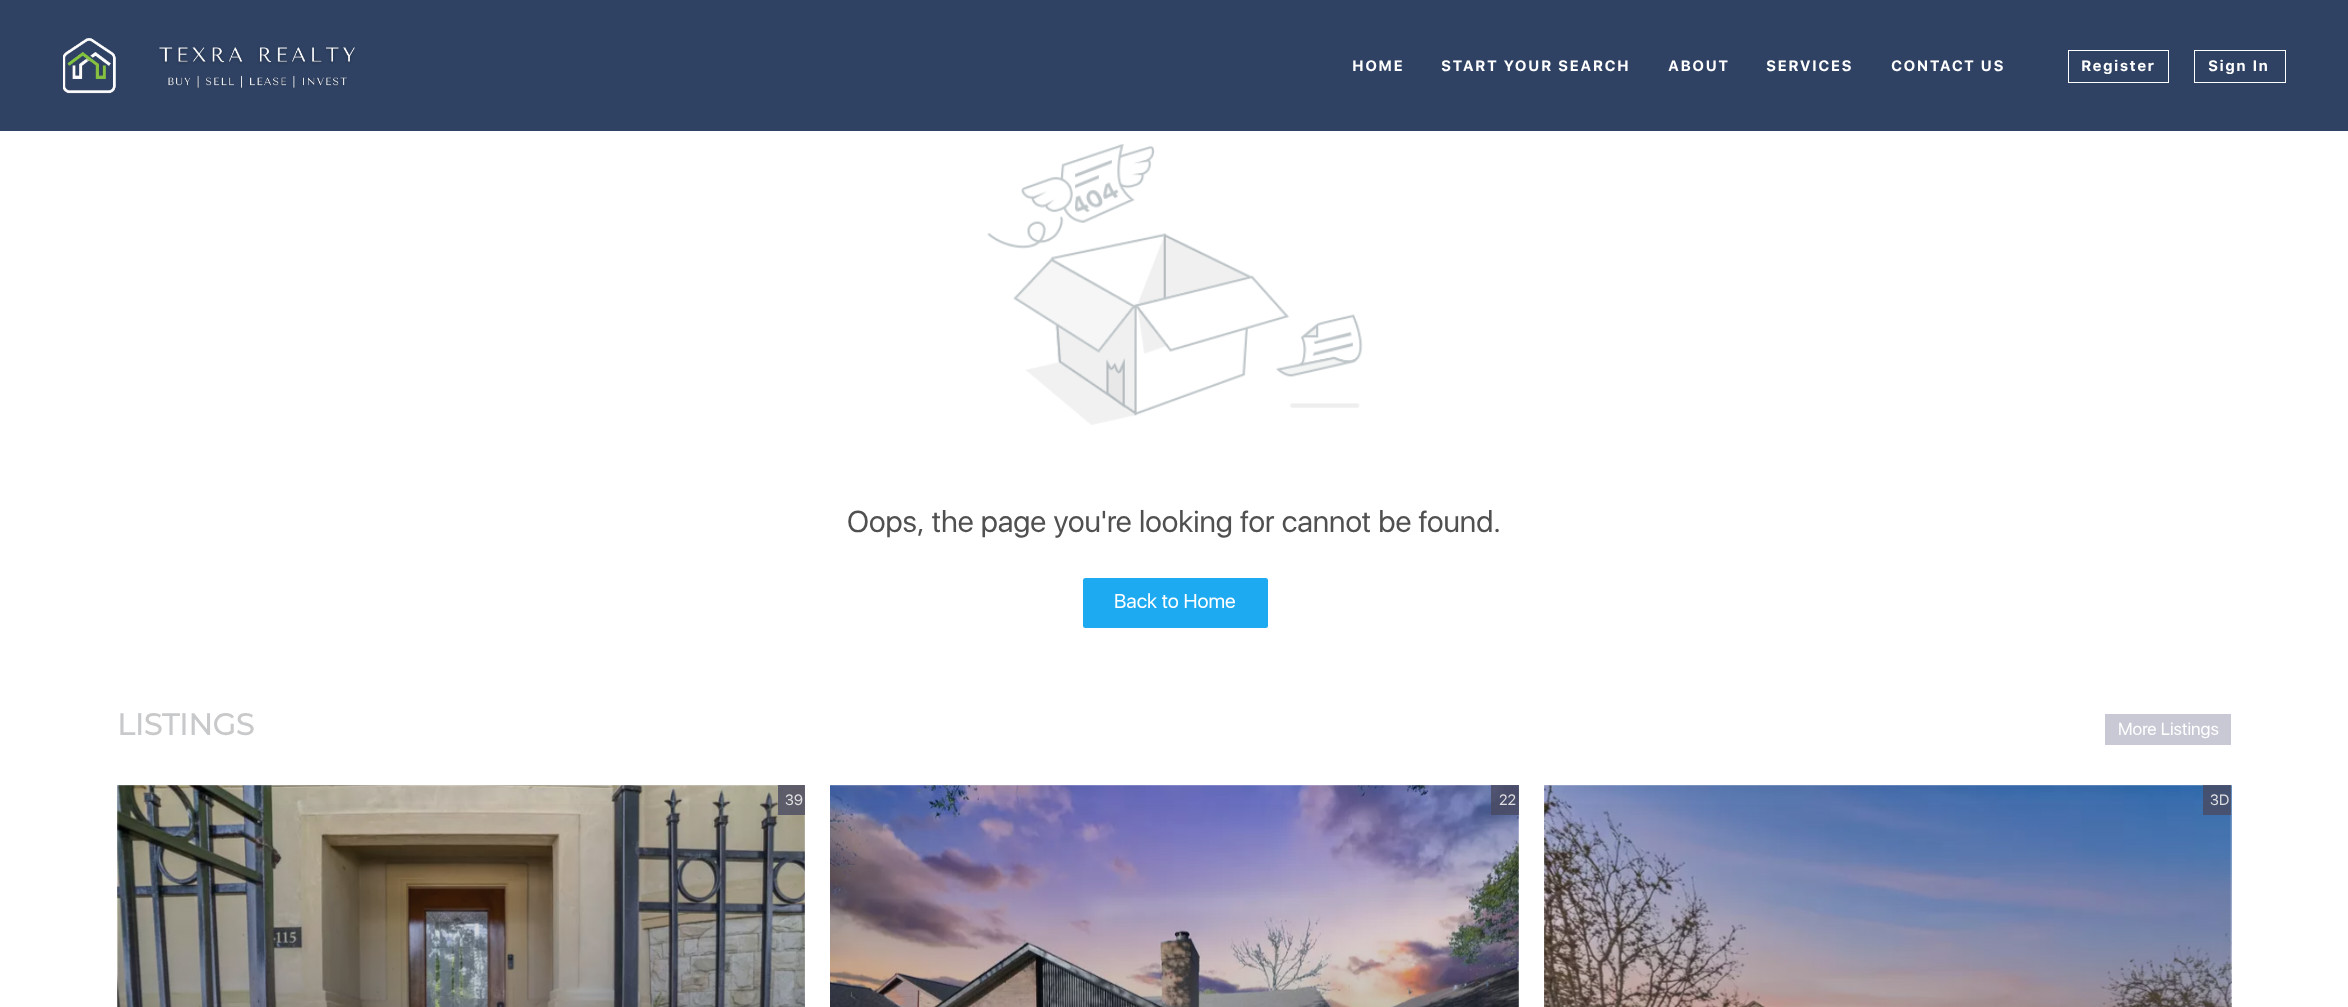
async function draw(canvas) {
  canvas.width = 2348
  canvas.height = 1007
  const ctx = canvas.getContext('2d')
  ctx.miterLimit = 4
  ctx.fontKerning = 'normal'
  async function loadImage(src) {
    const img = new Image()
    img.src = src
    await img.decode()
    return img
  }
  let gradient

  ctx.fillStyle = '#fff'
  ctx.fillRect(0, 0, 2348, 1007)
  ctx.fillStyle = '#2f4263'
  ctx.fillRect(0, 0, 2348, 131)
  ctx.drawImage(await loadImage('image0.png'), 63, 38, 292, 56)
  ctx.letterSpacing = '1.4px'
  ctx.font = 'bold 15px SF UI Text'
  ctx.fillStyle = '#fff'
  ctx.fillText('HOME', 1352, 71)
  ctx.fillText('START YOUR SEARCH', 1441, 71)
  ctx.fillText('ABOUT', 1668, 71)
  ctx.fillText('SERVICES', 1766, 71)
  ctx.fillText('CONTACT US', 1891, 71)
  ctx.strokeStyle = '#fff'
  ctx.strokeRect(2068.5, 50.5, 100, 32)
  ctx.fillText('Register', 2081, 71)
  ctx.strokeRect(2194.5, 50.5, 91, 32)
  ctx.fillText('Sign In', 2208, 71)
  ctx.drawImage(await loadImage('image1.png'), 987, 144, 376, 281)
  ctx.letterSpacing = '0px'
  ctx.font = '30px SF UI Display'
  ctx.fillStyle = '#505050'
  ctx.fillText('Oops, the page you\'re looking for cannot be found.', 847, 532)
  ctx.fillStyle = '#1daaf0'
  ctx.beginPath()
  ctx.roundRect(1083, 578, 185, 50, 2.5)
  ctx.fill()
  ctx.font = '20px SF UI Display'
  ctx.fillStyle = '#fff'
  ctx.fillText('Back to Home', 1114, 608)
  ctx.font = 'bold 30px Montserrat'
  ctx.fillStyle = '#c8c9cb'
  ctx.fillText('LISTINGS', 117, 735)
  ctx.fillStyle = '#c9c9d5'
  ctx.fillRect(2105, 714, 126, 31)
  ctx.font = '17.5px SF UI Display'
  ctx.fillStyle = '#fff'
  ctx.fillText('More Listings', 2118, 735)
  ctx.drawImage(await loadImage('image2.png'), 117, 785, 688, 222)
  gradient = ctx.createLinearGradient(461, 785, 461, 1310)
  gradient.addColorStop(0, '#242a3d00')
  gradient.addColorStop(1, '#242a3d99')
  gradient.addColorStop(1, '#242a3d')
  ctx.fillStyle = gradient
  ctx.fillRect(118, 804, 687, 203)
  ctx.fillStyle = '#4a4a60cc'
  ctx.fillRect(778, 785, 27, 30)
  ctx.font = '15px SF UI Display'
  ctx.fillStyle = '#dfdee1'
  ctx.fillText('39', 785, 805)
  ctx.drawImage(await loadImage('image3.png'), 830, 785, 689, 222)
  gradient = ctx.createLinearGradient(1174, 785, 1174, 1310)
  gradient.addColorStop(0, '#242a3d00')
  gradient.addColorStop(1, '#242a3d99')
  gradient.addColorStop(1, '#242a3d')
  ctx.fillStyle = gradient
  ctx.fillRect(830, 804, 689, 203)
  ctx.fillStyle = '#4a4a60cc'
  ctx.fillRect(1491, 785, 28, 30)
  ctx.fillStyle = '#dfdee1'
  ctx.fillText('22', 1499, 805)
  ctx.drawImage(await loadImage('image4.png'), 1544, 785, 688, 222)
  gradient = ctx.createLinearGradient(1888, 785, 1888, 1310)
  gradient.addColorStop(0, '#242a3d00')
  gradient.addColorStop(1, '#242a3d99')
  gradient.addColorStop(1, '#242a3d')
  ctx.fillStyle = gradient
  ctx.fillRect(1544, 804, 687, 203)
  ctx.fillStyle = '#4a4a60cc'
  ctx.fillRect(2203, 785, 28, 30)
  ctx.fillStyle = '#dfdee1'
  ctx.fillText('3D', 2210, 805)
}

draw(document.querySelector('canvas'))
